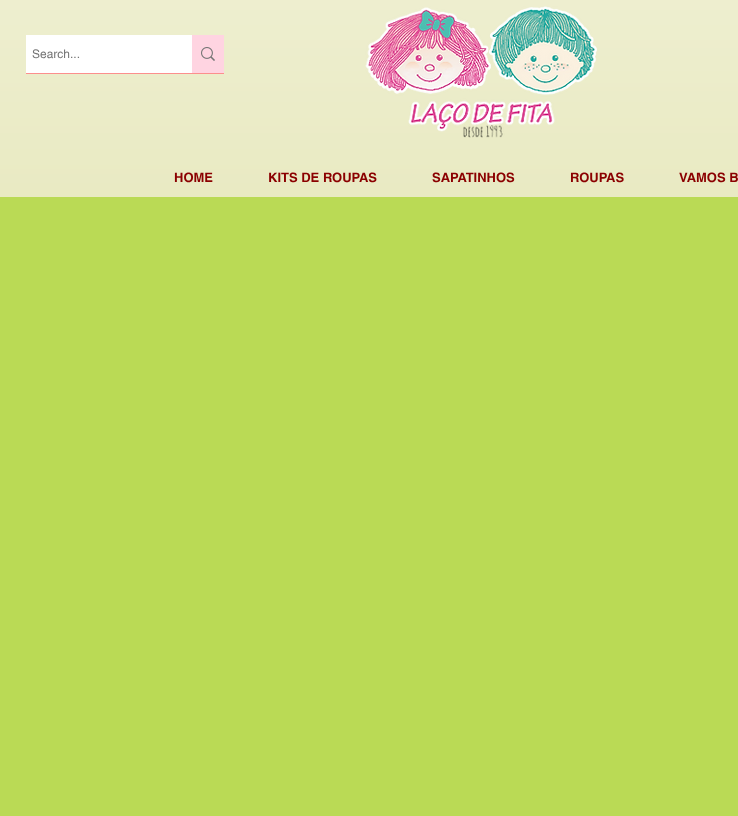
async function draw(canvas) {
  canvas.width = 738
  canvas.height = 816
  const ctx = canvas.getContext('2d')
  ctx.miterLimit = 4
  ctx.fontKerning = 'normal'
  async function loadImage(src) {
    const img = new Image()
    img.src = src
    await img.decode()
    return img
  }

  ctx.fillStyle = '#bada55'
  ctx.fillRect(0, 0, 738, 816)
  ctx.fillStyle = '#e8e9bf'
  ctx.fillRect(0, 0, 738, 197)
  ctx.drawImage(await loadImage('image0.png'), 0, 0, 738, 197)
  ctx.fillStyle = '#fc8f8d'
  ctx.fillRect(26, 73, 198, 1)
  ctx.fillStyle = '#fff'
  ctx.fillRect(26, 35, 166, 38)
  ctx.font = '12px helvetica'
  ctx.fillStyle = '#757575'
  ctx.fillText('Search...', 32, 58)
  ctx.fillStyle = '#ffd4e1'
  ctx.fillRect(192, 35, 32, 38)
  ctx.drawImage(await loadImage('image1.png'), 201, 47, 14, 14)
  ctx.drawImage(await loadImage('image2.png'), 365, 6, 232, 132)
  ctx.font = 'bold 13px helvetica'
  ctx.fillStyle = '#8b0000'
  ctx.fillText('HOME', 174, 182)
  ctx.fillText('KITS DE ROUPAS', 268, 182)
  ctx.fillText('SAPATINHOS', 432, 182)
  ctx.fillText('ROUPAS', 570, 182)
  ctx.fillText('VAMOS B', 679, 182)
}

draw(document.querySelector('canvas'))
